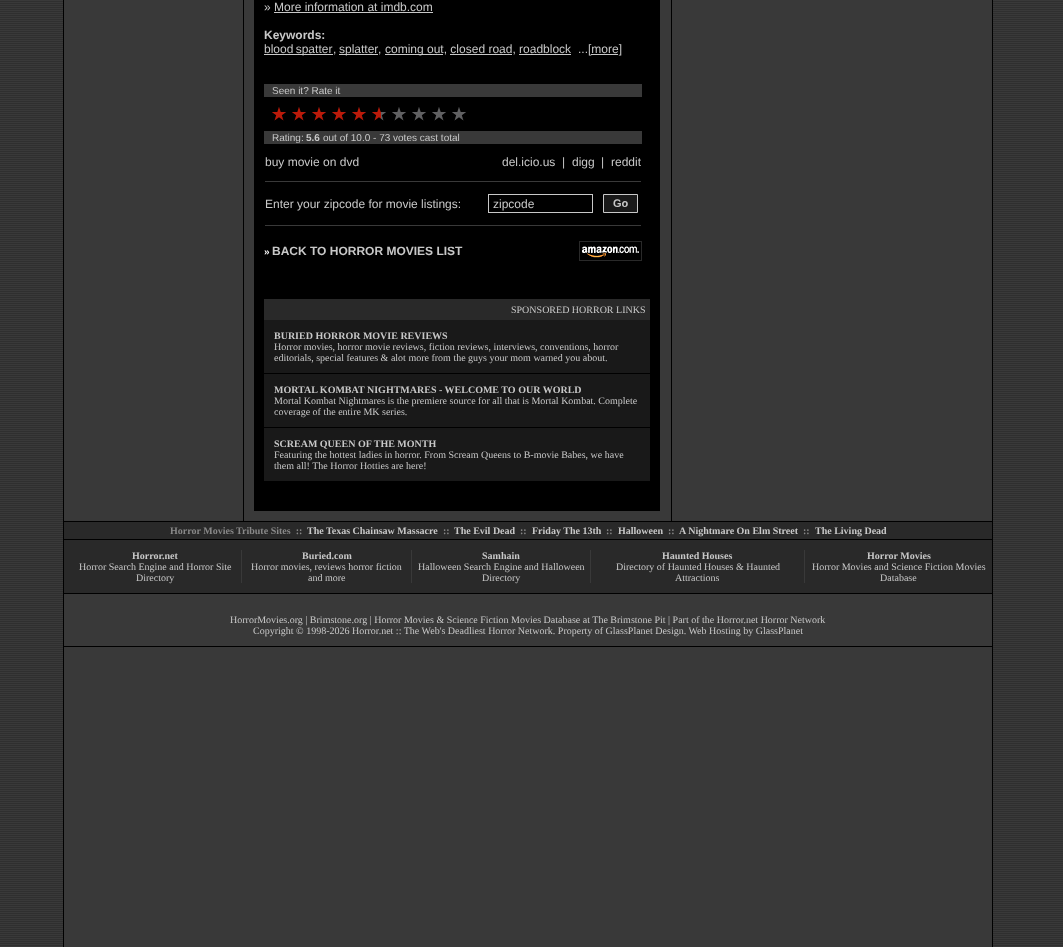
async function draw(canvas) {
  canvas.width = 1063
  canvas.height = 947
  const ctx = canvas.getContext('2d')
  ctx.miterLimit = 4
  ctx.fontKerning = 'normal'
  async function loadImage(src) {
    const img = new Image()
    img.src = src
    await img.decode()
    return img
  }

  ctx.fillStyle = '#393939'
  ctx.fillRect(0, 0, 1063, 947)
  ctx.drawImage(await loadImage('image0.png'), 0, 1, 1063, 945)
  ctx.fillStyle = '#000'
  ctx.fillRect(63, 0, 1, 947)
  ctx.fillStyle = '#393939'
  ctx.fillRect(64, 1, 928, 945)
  ctx.fillStyle = '#000'
  ctx.fillRect(243, 0, 1, 521)
  ctx.fillRect(254, 0, 406, 511)
  ctx.font = '12px Liberation Sans'
  ctx.fillStyle = '#c8c8c8'
  ctx.fillText('» More information at imdb.com', 264, 11)
  ctx.fillRect(274, 12, 159, 1)
  ctx.font = 'bold 12px Liberation Sans'
  ctx.fillText('Keywords:', 264, 39)
  ctx.fillRect(264, 54, 69, 1)
  ctx.wordSpacing = '-1px'
  ctx.font = '12px Liberation Sans'
  ctx.fillText('blood spatter', 264, 53)
  ctx.wordSpacing = '0px'
  ctx.fillText(',', 333, 53)
  ctx.fillRect(339, 54, 39, 1)
  ctx.fillText('splatter', 339, 53)
  ctx.fillText(',', 378, 53)
  ctx.fillRect(385, 54, 58, 1)
  ctx.fillText('coming out, closed road, roadblock', 385, 53)
  ctx.fillText('...[more]', 578, 53)
  ctx.fillRect(450, 54, 62, 1)
  ctx.fillRect(519, 54, 52, 1)
  ctx.fillRect(591, 54, 27, 1)
  ctx.fillStyle = '#393939'
  ctx.fillRect(264, 84, 378, 13)
  ctx.font = '10px Liberation Sans'
  ctx.fillStyle = '#c8c8c8'
  ctx.fillText('Seen it? Rate it', 272, 94)
  ctx.drawImage(await loadImage('image1.png'), 381, 107, 85, 14)
  ctx.drawImage(await loadImage('image2.png'), 272, 107, 109, 14)
  ctx.fillStyle = '#393939'
  ctx.fillRect(264, 131, 378, 13)
  ctx.fillStyle = '#c8c8c8'
  ctx.fillText('Rating:', 272, 141)
  ctx.font = 'bold 10px Liberation Sans'
  ctx.fillText('5.6', 306, 141)
  ctx.font = '10px Liberation Sans'
  ctx.fillText('out of 10.0 - 73 votes cast total', 323, 141)
  ctx.font = '12px Liberation Sans'
  ctx.fillText('buy movie on dvd', 265, 166)
  ctx.fillText('del.icio.us', 502, 166)
  ctx.fillText('|', 562, 166)
  ctx.fillText('digg', 572, 166)
  ctx.fillText('|', 601, 166)
  ctx.fillText('reddit', 611, 166)
  ctx.fillStyle = '#393939'
  ctx.fillRect(265, 181, 376, 1)
  ctx.fillStyle = '#c8c8c8'
  ctx.fillText('Enter your zipcode for movie listings:', 265, 208)
  ctx.strokeStyle = '#c8c8c8'
  ctx.strokeRect(488.5, 194.5, 104, 18)
  ctx.fillText('zipcode', 493, 208)
  ctx.fillStyle = '#191919'
  ctx.beginPath()
  ctx.rect(603.5, 194.5, 34, 18)
  ctx.fill()
  ctx.stroke()
  ctx.font = 'bold 11px Liberation Sans'
  ctx.fillStyle = '#c8c8c8'
  ctx.fillText('Go', 613, 207)
  ctx.fillStyle = '#393939'
  ctx.fillRect(265, 225, 376, 1)
  ctx.font = 'bold 10px Liberation Sans'
  ctx.fillStyle = '#fff'
  ctx.fillText('»', 264, 255)
  ctx.font = 'bold 12px Liberation Sans'
  ctx.fillStyle = '#c8c8c8'
  ctx.fillText('BACK TO HORROR MOVIES LIST', 272, 255)
  ctx.drawImage(await loadImage('image3.png'), 579, 241, 63, 20)
  ctx.fillStyle = '#292929'
  ctx.fillRect(264, 299, 386, 21)
  ctx.font = '10px Liberation Serif'
  ctx.fillStyle = '#c8c8c8'
  ctx.fillText('SPONSORED HORROR LINKS', 511, 313)
  ctx.fillStyle = '#191919'
  ctx.fillRect(264, 320, 386, 53)
  ctx.font = 'bold 10px Liberation Serif'
  ctx.fillStyle = '#c8c8c8'
  ctx.fillText('BURIED HORROR MOVIE REVIEWS', 274, 339)
  ctx.font = '10px Liberation Serif'
  ctx.fillText('Horror movies, horror movie reviews, fiction reviews, interviews, conventions, horror', 274, 350)
  ctx.fillText('editorials, special features & alot more from the guys your mom warned you about.', 274, 361)
  ctx.fillStyle = '#191919'
  ctx.fillRect(264, 374, 386, 53)
  ctx.font = 'bold 10px Liberation Serif'
  ctx.fillStyle = '#c8c8c8'
  ctx.fillText('MORTAL KOMBAT NIGHTMARES - WELCOME TO OUR WORLD', 274, 393)
  ctx.font = '10px Liberation Serif'
  ctx.fillText('Mortal Kombat Nightmares is the premiere source for all that is Mortal Kombat. Complete', 274, 404)
  ctx.fillText('coverage of the entire MK series.', 274, 415)
  ctx.fillStyle = '#191919'
  ctx.fillRect(264, 428, 386, 53)
  ctx.font = 'bold 10px Liberation Serif'
  ctx.fillStyle = '#c8c8c8'
  ctx.fillText('SCREAM QUEEN OF THE MONTH', 274, 447)
  ctx.font = '10px Liberation Serif'
  ctx.fillText('Featuring the hottest ladies in horror. From Scream Queens to B-movie Babes, we have', 274, 458)
  ctx.fillText('them all! The Horror Hotties are here!', 274, 469)
  ctx.fillStyle = '#000'
  ctx.fillRect(671, 0, 1, 521)
  ctx.fillStyle = '#292929'
  ctx.fillRect(64, 522, 928, 17)
  ctx.fillStyle = '#000'
  ctx.fillRect(64, 521, 928, 1)
  ctx.font = 'bold 10px Liberation Serif'
  ctx.fillStyle = '#888'
  ctx.fillText('Horror Movies Tribute Sites  ::', 170, 534)
  ctx.fillStyle = '#c8c8c8'
  ctx.fillText('The Texas Chainsaw Massacre', 307, 534)
  ctx.fillStyle = '#888'
  ctx.fillText('::', 443, 534)
  ctx.fillStyle = '#c8c8c8'
  ctx.fillText('The Evil Dead', 454, 534)
  ctx.fillStyle = '#888'
  ctx.fillText('::', 520, 534)
  ctx.fillStyle = '#c8c8c8'
  ctx.fillText('Friday The 13th', 532, 534)
  ctx.fillStyle = '#888'
  ctx.fillText('::', 606, 534)
  ctx.fillStyle = '#c8c8c8'
  ctx.fillText('Halloween', 618, 534)
  ctx.fillStyle = '#888'
  ctx.fillText('::', 668, 534)
  ctx.fillStyle = '#c8c8c8'
  ctx.fillText('A Nightmare On Elm Street', 679, 534)
  ctx.fillStyle = '#888'
  ctx.fillText('::', 803, 534)
  ctx.fillStyle = '#c8c8c8'
  ctx.fillText('The Living Dead', 815, 534)
  ctx.fillStyle = '#000'
  ctx.fillRect(64, 539, 928, 1)
  ctx.fillStyle = '#292929'
  ctx.fillRect(64, 540, 928, 53)
  ctx.fillStyle = '#c8c8c8'
  ctx.fillText('Horror.net', 132, 559)
  ctx.font = '10px Liberation Serif'
  ctx.fillText('Horror Search Engine and Horror Site', 79, 570)
  ctx.fillText('Directory', 136, 581)
  ctx.fillStyle = '#393939'
  ctx.fillRect(241, 550, 1, 33)
  ctx.font = 'bold 10px Liberation Serif'
  ctx.fillStyle = '#c8c8c8'
  ctx.fillText('Buried.com', 302, 559)
  ctx.font = '10px Liberation Serif'
  ctx.fillText('Horror movies, reviews horror fiction', 251, 570)
  ctx.fillText('and more', 308, 581)
  ctx.fillStyle = '#393939'
  ctx.fillRect(411, 550, 1, 33)
  ctx.font = 'bold 10px Liberation Serif'
  ctx.fillStyle = '#c8c8c8'
  ctx.fillText('Samhain', 482, 559)
  ctx.font = '10px Liberation Serif'
  ctx.fillText('Halloween Search Engine and Halloween', 418, 570)
  ctx.fillText('Directory', 482, 581)
  ctx.fillStyle = '#393939'
  ctx.fillRect(590, 550, 1, 33)
  ctx.font = 'bold 10px Liberation Serif'
  ctx.fillStyle = '#c8c8c8'
  ctx.fillText('Haunted Houses', 662, 559)
  ctx.font = '10px Liberation Serif'
  ctx.fillText('Directory of Haunted Houses & Haunted', 616, 570)
  ctx.fillText('Attractions', 675, 581)
  ctx.fillStyle = '#393939'
  ctx.fillRect(804, 550, 1, 33)
  ctx.font = 'bold 10px Liberation Serif'
  ctx.fillStyle = '#c8c8c8'
  ctx.fillText('Horror Movies', 867, 559)
  ctx.font = '10px Liberation Serif'
  ctx.fillText('Horror Movies and Science Fiction Movies', 812, 570)
  ctx.fillText('Database', 880, 581)
  ctx.fillStyle = '#000'
  ctx.fillRect(64, 593, 928, 1)
  ctx.fillStyle = '#c8c8c8'
  ctx.fillText('HorrorMovies.org | Brimstone.org | Horror Movies & Science Fiction Movies Database at The Brimstone Pit | Part of the Horror.net Horror Network', 230, 623)
  ctx.fillText('Copyright © 1998-2026 Horror.net :: The Web\'s Deadliest Horror Network. Property of GlassPlanet Design. Web Hosting by GlassPlanet', 253, 634)
  ctx.fillStyle = '#000'
  ctx.fillRect(64, 646, 928, 1)
  ctx.fillRect(992, 0, 1, 947)
}

draw(document.querySelector('canvas'))
